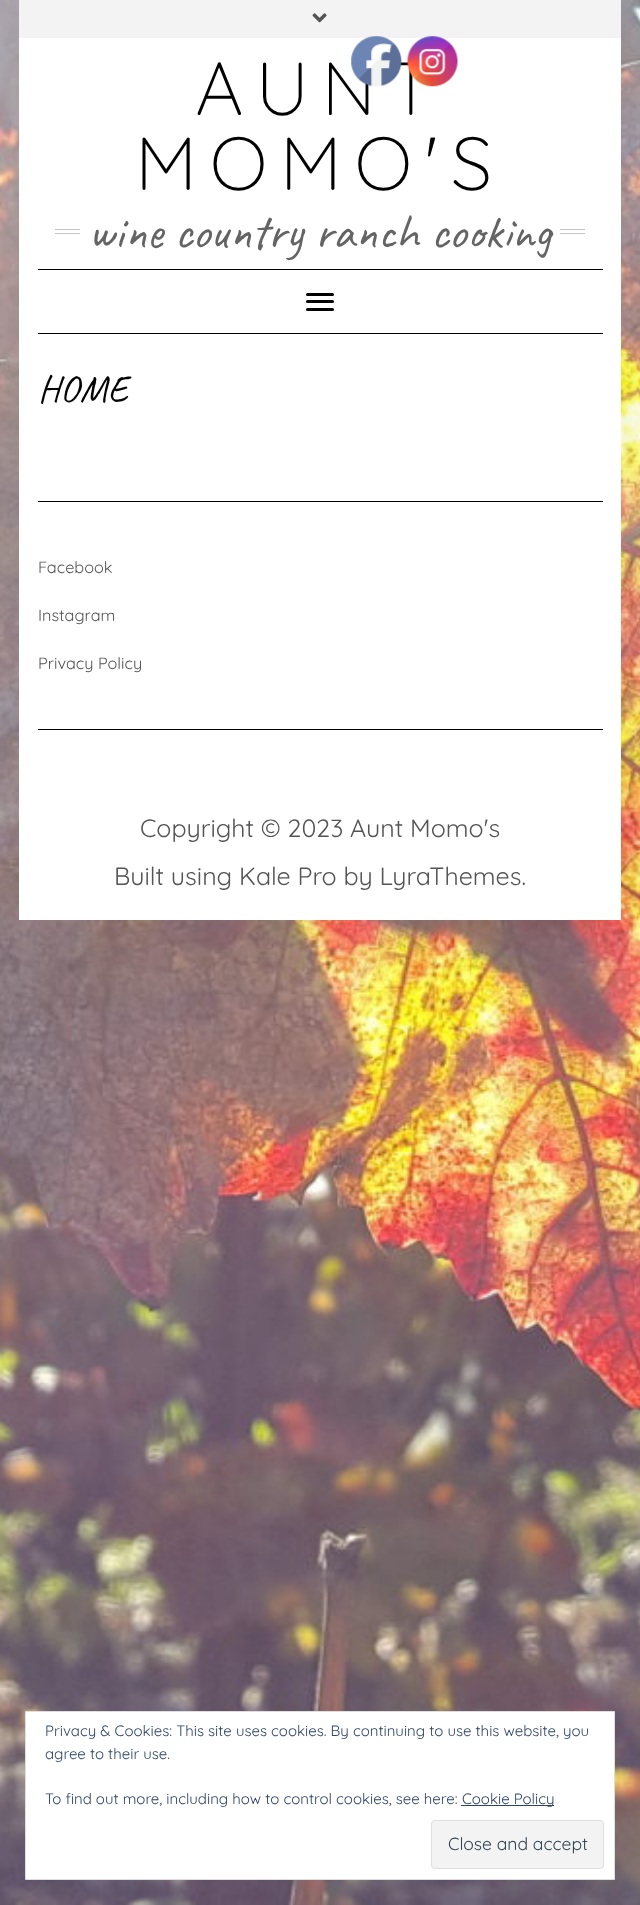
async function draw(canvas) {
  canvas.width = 640
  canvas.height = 1905
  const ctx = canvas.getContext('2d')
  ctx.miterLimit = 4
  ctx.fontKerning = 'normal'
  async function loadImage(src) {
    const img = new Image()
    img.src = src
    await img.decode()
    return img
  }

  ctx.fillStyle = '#fff'
  ctx.fillRect(0, 0, 640, 1905)
  ctx.drawImage(await loadImage('image0.png'), 0, 0, 640, 1905)
  ctx.fillStyle = '#0000000f'
  ctx.filter = 'blur(31px)'
  ctx.beginPath()
  ctx.rect(19, 0, 602, 920)
  ctx.fill()
  ctx.filter = 'none'
  ctx.fillStyle = '#fff'
  ctx.fillRect(19, 38, 602, 882)
  ctx.fillStyle = '#f3f3f3'
  ctx.fillRect(19, 0, 602, 38)
  ctx.letterSpacing = '12.5px'
  ctx.font = '300 75px Quicksand'
  ctx.fillStyle = '#000'
  ctx.fillText('AUNT', 195, 115)
  ctx.drawImage(await loadImage('image1.png'), 351, 36, 51, 51)
  ctx.drawImage(await loadImage('image2.png'), 407, 36, 51, 51)
  ctx.drawImage(await loadImage('image3.png'), 312, 13, 15, 10)
  ctx.fillText('MOMO\'S', 135, 190)
  ctx.fillStyle = '#c4c4c4'
  ctx.fillRect(55, 229, 25, 1)
  ctx.fillRect(55, 233, 25, 1)
  ctx.letterSpacing = '0px'
  ctx.font = '50px Caveat'
  ctx.fillStyle = '#646464'
  ctx.fillText('wine country ranch cooking', 88, 248)
  ctx.fillStyle = '#c4c4c4'
  ctx.fillRect(560, 229, 25, 1)
  ctx.fillRect(560, 233, 25, 1)
  ctx.fillStyle = '#000'
  ctx.fillRect(38, 269, 565, 1)
  ctx.fillRect(38, 333, 565, 1)
  ctx.beginPath()
  ctx.roundRect(306, 293, 28, 3, 1.5)
  ctx.fill()
  ctx.beginPath()
  ctx.roundRect(306, 300, 28, 3, 1.5)
  ctx.fill()
  ctx.beginPath()
  ctx.roundRect(306, 308, 28, 3, 1.5)
  ctx.fill()
  ctx.letterSpacing = '1px'
  ctx.font = '37.5px Caveat'
  ctx.fillText('HOME', 38, 401)
  ctx.fillRect(38, 501, 565, 1)
  ctx.letterSpacing = '0px'
  ctx.font = '16.25px Quicksand'
  ctx.fillStyle = '#545454'
  ctx.fillText('Facebook', 38, 573)
  ctx.fillText('Instagram', 38, 621)
  ctx.fillText('Privacy Policy', 38, 669)
  ctx.fillStyle = '#000'
  ctx.fillRect(38, 729, 565, 1)
  ctx.font = '25px Quicksand'
  ctx.fillStyle = '#545454'
  ctx.fillText('Copyright © 2023 Aunt Momo\'s', 140, 837)
  ctx.fillText('Built using Kale Pro by LyraThemes.', 114, 885)
  ctx.fillStyle = '#fff'
  ctx.beginPath()
  ctx.rect(25.5, 1711.5, 589, 168)
  ctx.fill()
  ctx.strokeStyle = '#dedede'
  ctx.stroke()
  ctx.font = '15px Quicksand'
  ctx.fillStyle = '#2e4467'
  ctx.fillText('Privacy & Cookies: This site uses cookies. By continuing to use this website, you', 45, 1736)
  ctx.fillText('agree to their use.', 45, 1759)
  ctx.fillText('To find out more, including how to control cookies, see here:', 45, 1804)
  ctx.fillRect(461, 1805, 93, 1)
  ctx.fillText('Cookie Policy', 462, 1804)
  ctx.fillStyle = '#f3f3f3'
  ctx.beginPath()
  ctx.roundRect(431.5, 1820.5, 172, 48, 3.5)
  ctx.fill()
  ctx.stroke()
  ctx.font = '17.5px Quicksand'
  ctx.fillStyle = '#2e4453'
  ctx.fillText('Close and accept', 448, 1850)
}

draw(document.querySelector('canvas'))
